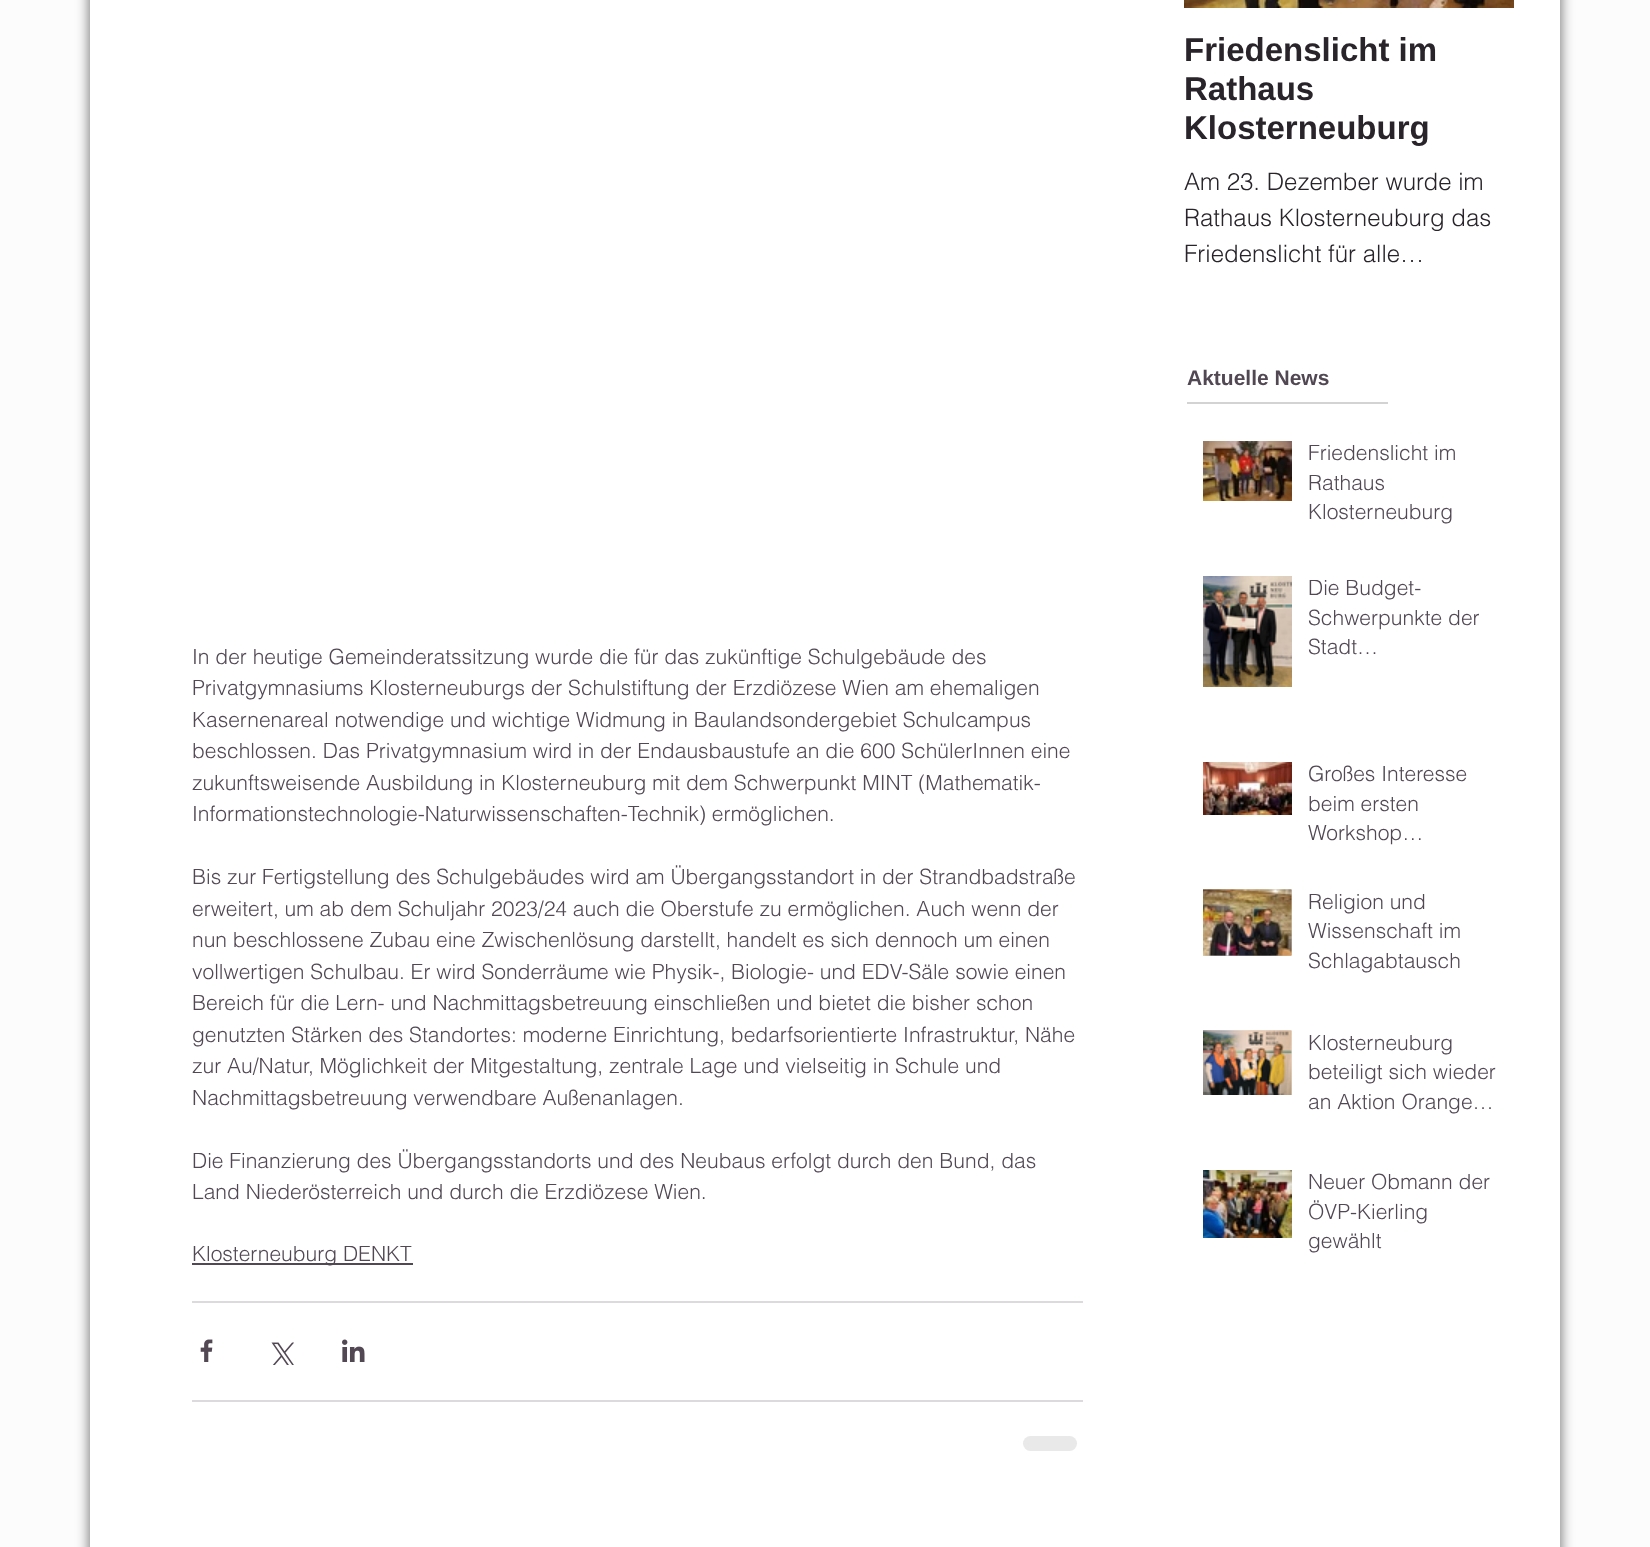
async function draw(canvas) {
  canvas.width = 1650
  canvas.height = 1547
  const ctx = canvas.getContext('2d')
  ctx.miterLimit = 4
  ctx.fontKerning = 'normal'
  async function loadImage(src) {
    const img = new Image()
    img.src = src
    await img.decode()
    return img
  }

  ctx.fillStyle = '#fcfcfc'
  ctx.fillRect(0, 0, 1650, 1547)
  ctx.fillStyle = '#00000099'
  ctx.filter = 'blur(7px)'
  ctx.beginPath()
  ctx.rect(90, -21, 1470, 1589)
  ctx.fill()
  ctx.filter = 'none'
  ctx.fillStyle = '#fff'
  ctx.fillRect(90, 0, 1470, 1547)
  ctx.drawImage(await loadImage('image0.png'), 1184, 0, 330, 8)
  ctx.font = 'bold 33px Liberation Sans'
  ctx.fillStyle = '#28242a'
  ctx.fillText('Friedenslicht im', 1184, 61)
  ctx.fillText('Rathaus', 1184, 100)
  ctx.fillText('Klosterneuburg', 1184, 139)
  ctx.font = '300 24px helvetica'
  ctx.fillText('Am 23. Dezember wurde im', 1184, 190)
  ctx.fillText('Rathaus Klosterneuburg das', 1184, 226)
  ctx.fillText('Friedenslicht für alle…', 1184, 262)
  ctx.font = 'bold 21px Liberation Sans'
  ctx.fillStyle = '#514853'
  ctx.fillText('Aktuelle News', 1187, 385)
  ctx.fillStyle = '#d3d3d3'
  ctx.fillRect(1187, 402, 201, 2)
  ctx.font = '300 21px helvetica'
  ctx.fillStyle = '#514853'
  ctx.fillText('In der heutige Gemeinderatssitzung wurde die für das zukünftige Schulgebäude des', 192, 664)
  ctx.fillText('Privatgymnasiums Klosterneuburgs der Schulstiftung der Erzdiözese Wien am ehemaligen', 192, 695)
  ctx.fillText('Kasernenareal notwendige und wichtige Widmung in Baulandsondergebiet Schulcampus', 192, 727)
  ctx.fillText('beschlossen. Das Privatgymnasium wird in der Endausbaustufe an die 600 SchülerInnen eine', 192, 758)
  ctx.fillText('zukunftsweisende Ausbildung in Klosterneuburg mit dem Schwerpunkt MINT (Mathematik-', 192, 790)
  ctx.fillText('Informationstechnologie-Naturwissenschaften-Technik) ermöglichen.', 192, 821)
  ctx.fillText('Bis zur Fertigstellung des Schulgebäudes wird am Übergangsstandort in der Strandbadstraße', 192, 884)
  ctx.fillText('erweitert, um ab dem Schuljahr 2023/24 auch die Oberstufe zu ermöglichen. Auch wenn der', 192, 916)
  ctx.fillText('nun beschlossene Zubau eine Zwischenlösung darstellt, handelt es sich dennoch um einen', 192, 947)
  ctx.fillText('vollwertigen Schulbau. Er wird Sonderräume wie Physik-, Biologie- und EDV-Säle sowie einen', 192, 979)
  ctx.fillText('Bereich für die Lern- und Nachmittagsbetreuung einschließen und bietet die bisher schon', 192, 1010)
  ctx.fillText('genutzten Stärken des Standortes: moderne Einrichtung, bedarfsorientierte Infrastruktur, Nähe', 192, 1042)
  ctx.fillText('zur Au/Natur, Möglichkeit der Mitgestaltung, zentrale Lage und vielseitig in Schule und', 192, 1073)
  ctx.fillText('Nachmittagsbetreuung verwendbare Außenanlagen.', 192, 1105)
  ctx.fillText('Die Finanzierung des Übergangsstandorts und des Neubaus erfolgt durch den Bund, das', 192, 1168)
  ctx.fillText('Land Niederösterreich und durch die Erzdiözese Wien.', 192, 1199)
  ctx.fillRect(192, 1263, 221, 2)
  ctx.fillText('Klosterneuburg DENKT', 192, 1261)
  ctx.fillStyle = '#dcdadd'
  ctx.fillRect(192, 1301, 891, 2)
  ctx.drawImage(await loadImage('image1.png'), 200, 1339, 13, 23)
  ctx.drawImage(await loadImage('image2.png'), 271, 1342, 23, 23)
  ctx.drawImage(await loadImage('image3.png'), 342, 1339, 23, 23)
  ctx.fillRect(192, 1400, 891, 2)
  ctx.fillStyle = '#eae9ea'
  ctx.beginPath()
  ctx.roundRect(1023, 1436, 54, 15, 7.5)
  ctx.fill()
  ctx.drawImage(await loadImage('image4.png'), 1203, 441, 89, 60)
  ctx.fillStyle = '#514853'
  ctx.fillText('Friedenslicht im', 1308, 460)
  ctx.fillText('Rathaus', 1308, 490)
  ctx.fillText('Klosterneuburg', 1308, 519)
  ctx.drawImage(await loadImage('image5.png'), 1203, 576, 89, 111)
  ctx.fillText('Die Budget-', 1308, 595)
  ctx.fillText('Schwerpunkte der', 1308, 625)
  ctx.fillText('Stadt…', 1308, 654)
  ctx.drawImage(await loadImage('image6.png'), 1203, 762, 89, 53)
  ctx.fillText('Großes Interesse', 1308, 781)
  ctx.fillText('beim ersten', 1308, 811)
  ctx.fillText('Workshop…', 1308, 840)
  ctx.drawImage(await loadImage('image7.png'), 1203, 889, 89, 67)
  ctx.drawImage(await loadImage('image8.png'), 1203, 889, 89, 67)
  ctx.fillText('Religion und', 1308, 909)
  ctx.fillText('Wissenschaft im', 1308, 938)
  ctx.fillText('Schlagabtausch', 1308, 968)
  ctx.drawImage(await loadImage('image9.png'), 1203, 1030, 89, 65)
  ctx.drawImage(await loadImage('image10.png'), 1203, 1030, 89, 65)
  ctx.fillText('Klosterneuburg', 1308, 1050)
  ctx.fillText('beteiligt sich wieder', 1308, 1079)
  ctx.fillText('an Aktion Orange…', 1308, 1109)
  ctx.drawImage(await loadImage('image11.png'), 1203, 1170, 89, 68)
  ctx.fillText('Neuer Obmann der', 1308, 1189)
  ctx.fillText('ÖVP-Kierling', 1308, 1219)
  ctx.fillText('gewählt', 1308, 1248)
}

draw(document.querySelector('canvas'))
